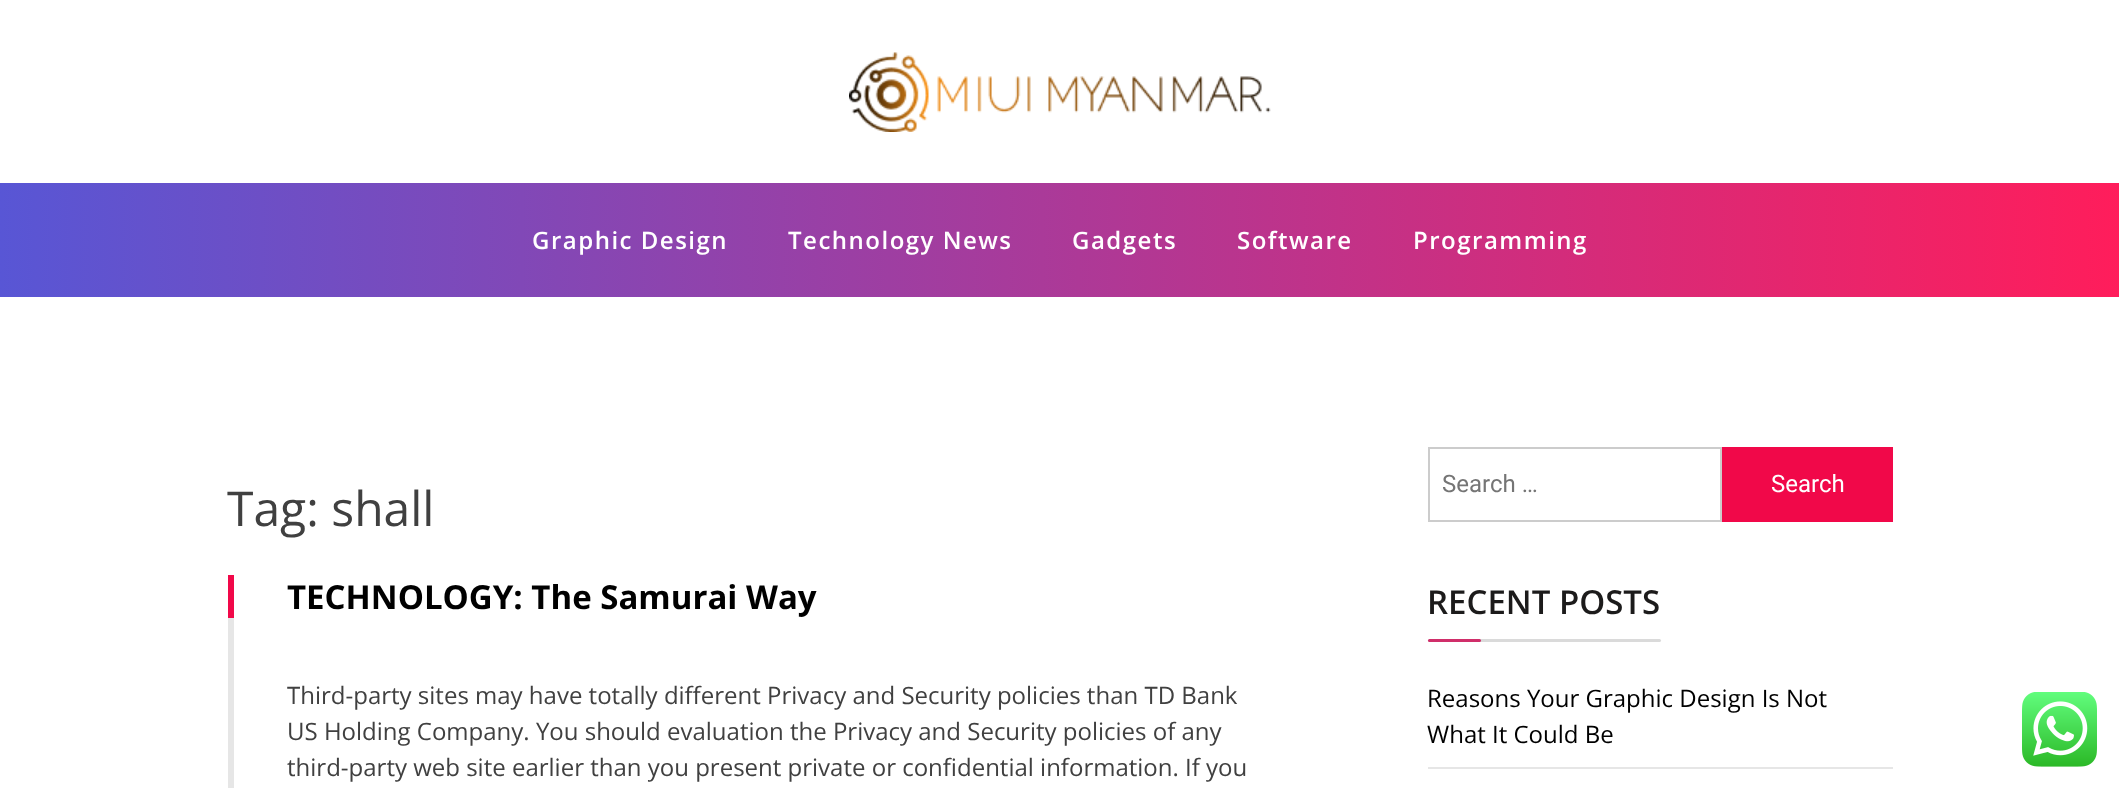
async function draw(canvas) {
  canvas.width = 2119
  canvas.height = 788
  const ctx = canvas.getContext('2d')
  ctx.miterLimit = 4
  ctx.fontKerning = 'normal'
  async function loadImage(src) {
    const img = new Image()
    img.src = src
    await img.decode()
    return img
  }
  let gradient

  ctx.fillStyle = '#fff'
  ctx.fillRect(0, 0, 2119, 788)
  ctx.drawImage(await loadImage('image0.png'), 849, 52, 422, 80)
  gradient = ctx.createLinearGradient(0, 240, 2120, 240)
  gradient.addColorStop(0, '#5856d5')
  gradient.addColorStop(1, '#ff1d5b')
  ctx.fillStyle = gradient
  ctx.fillRect(0, 183, 2119, 114)
  ctx.letterSpacing = '1.5px'
  ctx.font = '600 24px Open Sans'
  ctx.fillStyle = '#fff'
  ctx.fillText('Graphic Design', 532, 249)
  ctx.fillText('Technology News', 788, 249)
  ctx.fillText('Gadgets', 1072, 249)
  ctx.fillText('Software', 1237, 249)
  ctx.fillText('Programming', 1413, 249)
  ctx.letterSpacing = '0px'
  ctx.font = '48px Open Sans'
  ctx.fillStyle = '#404040'
  ctx.fillText('Tag: shall', 227, 526)
  ctx.fillStyle = '#f10849'
  ctx.fillRect(228, 575, 6, 43)
  ctx.font = 'bold 33px Open Sans'
  ctx.fillStyle = '#000'
  ctx.fillText('TECHNOLOGY: The Samurai Way', 287, 609)
  ctx.fillStyle = '#e6e6e6'
  ctx.fillRect(228, 618, 6, 170)
  ctx.font = '24px Open Sans'
  ctx.fillStyle = '#404040'
  ctx.fillText('Third-party sites may have totally different Privacy and Security policies than TD Bank', 287, 704)
  ctx.fillText('US Holding Company. You should evaluation the Privacy and Security policies of any', 287, 740)
  ctx.fillText('third-party web site earlier than you present private or confidential information. If you', 287, 776)
  ctx.strokeStyle = '#ccc'
  ctx.lineWidth = 2
  ctx.strokeRect(1429, 448, 292, 73)
  ctx.font = '24px Roboto'
  ctx.fillStyle = '#757575'
  ctx.fillText('Search …', 1442, 492)
  ctx.fillStyle = '#f10849'
  ctx.fillRect(1722, 447, 171, 75)
  ctx.fillStyle = '#fff'
  ctx.fillText('Search', 1771, 492)
  ctx.font = '600 33px Open Sans'
  ctx.fillStyle = '#1c1b1b'
  ctx.fillText('RECENT POSTS', 1427, 614)
  ctx.fillStyle = '#dadada'
  ctx.beginPath()
  ctx.roundRect(1428, 639, 233, 3, 1.5)
  ctx.fill()
  ctx.fillStyle = '#d02e6a'
  ctx.beginPath()
  ctx.roundRect(1428, 639, 53, 3, 1.5)
  ctx.fill()
  ctx.fillStyle = '#e6e6e6'
  ctx.fillRect(1428, 767, 465, 2)
  ctx.font = '24px Open Sans'
  ctx.fillStyle = '#000'
  ctx.fillText('Reasons Your Graphic Design Is Not', 1427, 707)
  ctx.fillText('What It Could Be', 1427, 743)
  ctx.drawImage(await loadImage('image1.png'), 2022, 692, 75, 75)
}

draw(document.querySelector('canvas'))
